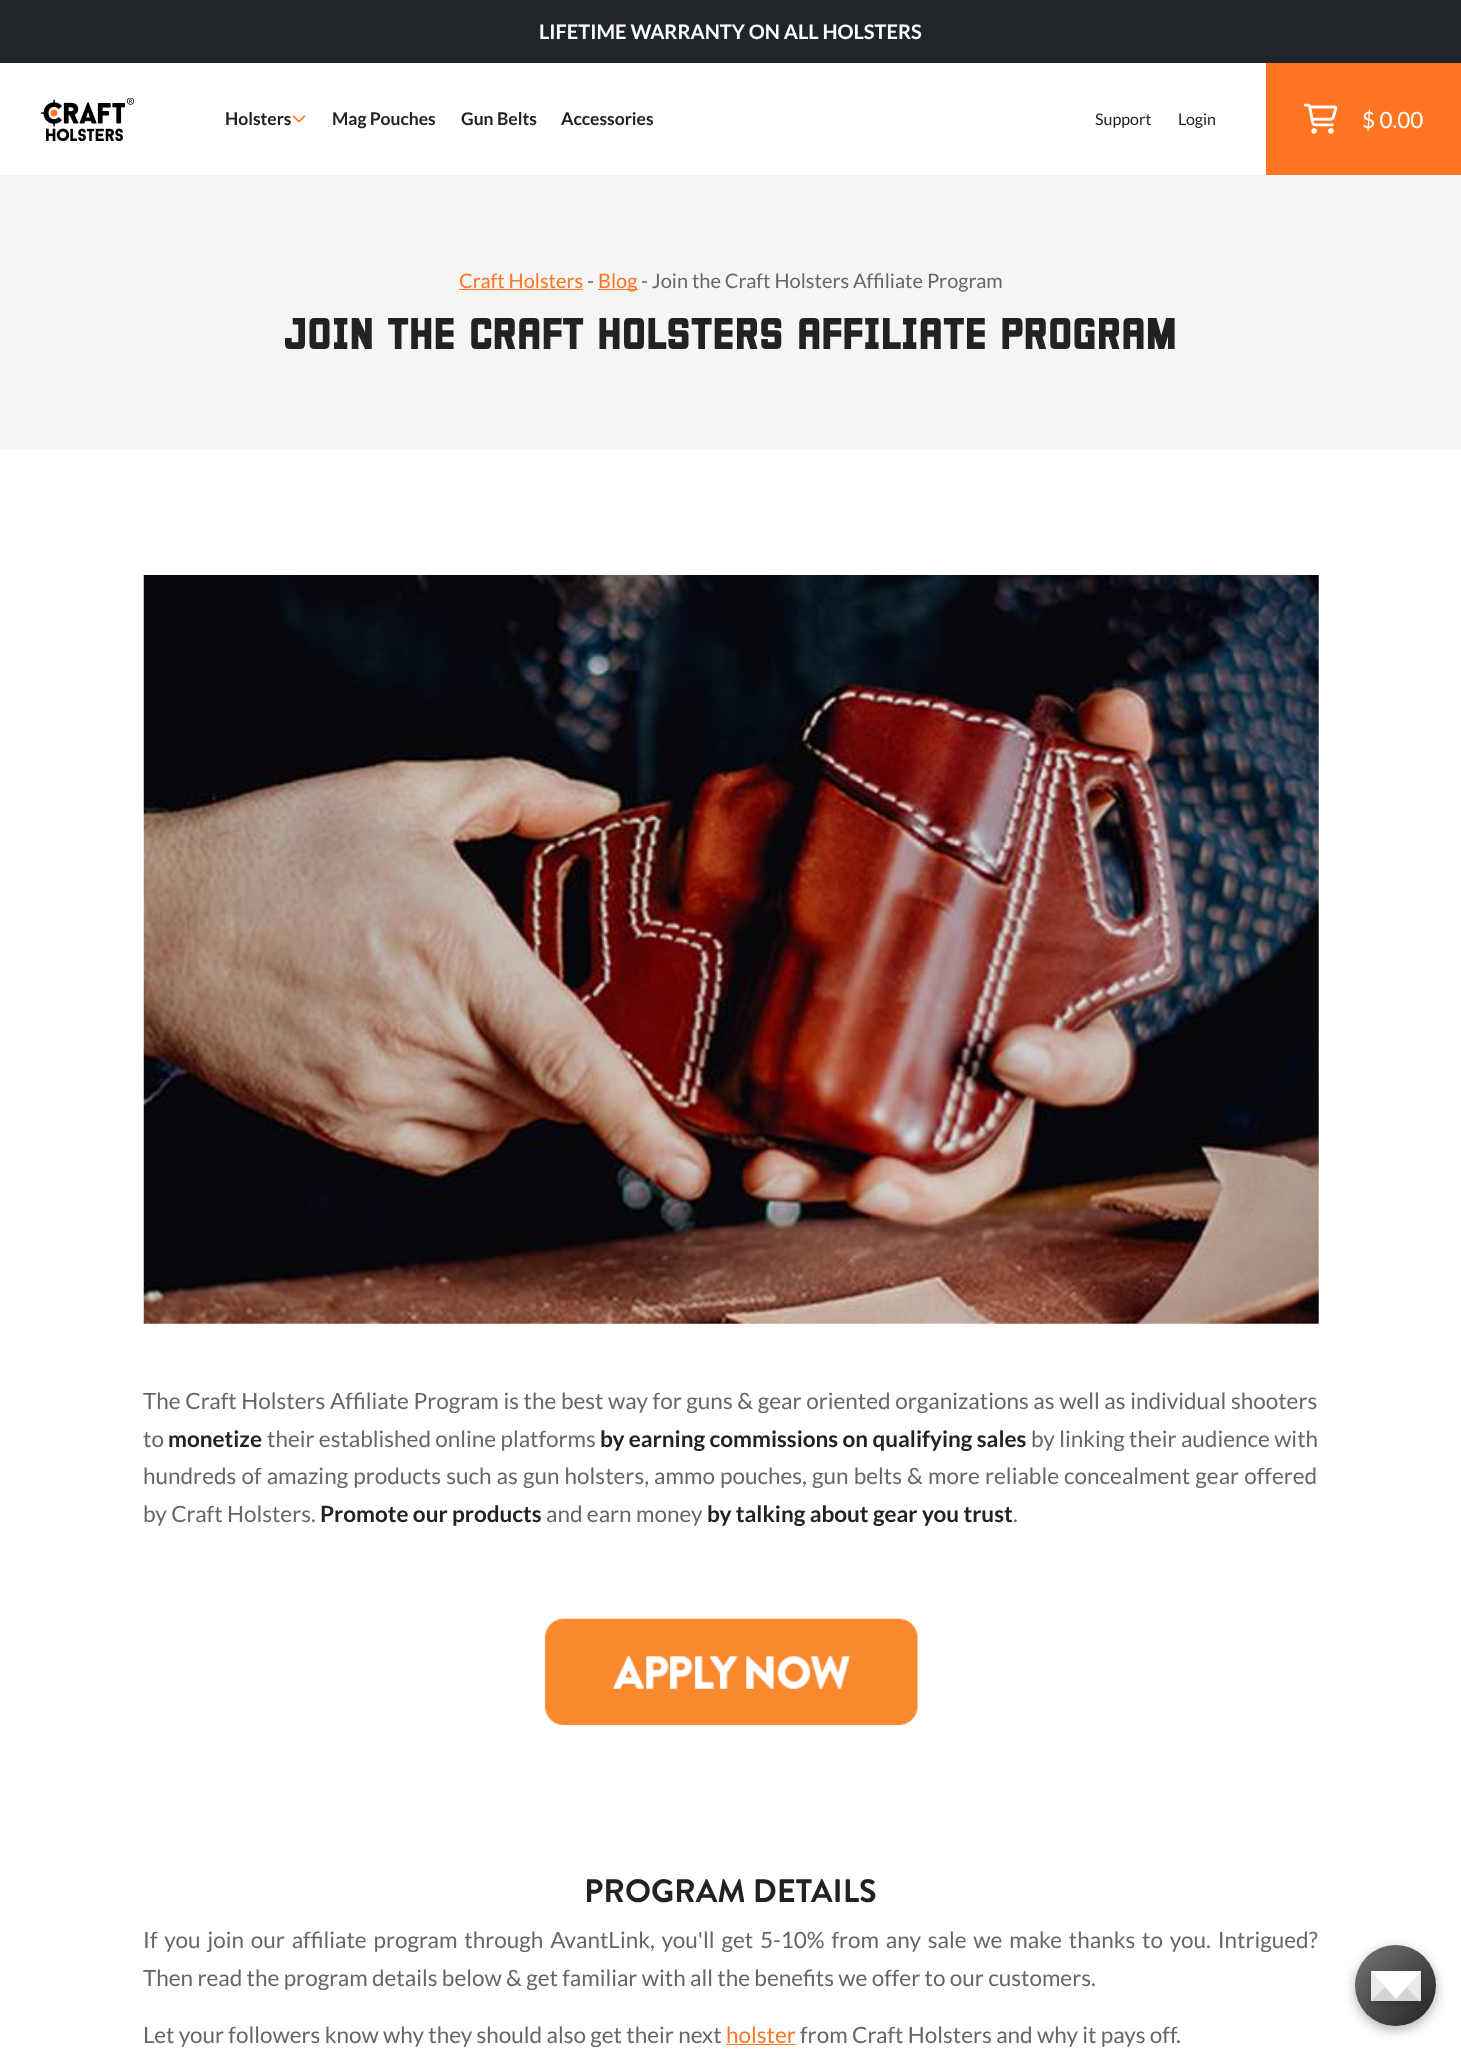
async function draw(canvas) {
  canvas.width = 1461
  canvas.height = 2058
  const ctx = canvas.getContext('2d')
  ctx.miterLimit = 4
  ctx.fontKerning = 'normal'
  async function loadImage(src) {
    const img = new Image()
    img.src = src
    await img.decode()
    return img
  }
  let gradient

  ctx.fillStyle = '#fff'
  ctx.fillRect(0, 0, 1461, 2058)
  ctx.fillStyle = '#212529'
  ctx.fillRect(0, 0, 1461, 63)
  ctx.font = 'bold 20px Lato'
  ctx.fillStyle = '#fff'
  ctx.fillText('LIFETIME WARRANTY ON ALL HOLSTERS', 539, 39)
  ctx.drawImage(await loadImage('image0.png'), 40, 98, 95, 43)
  ctx.font = 'bold 17.5px Lato'
  ctx.fillStyle = '#222'
  ctx.fillText('Holsters', 225, 125)
  ctx.drawImage(await loadImage('image1.png'), 292, 115, 14, 8)
  ctx.fillText('Mag Pouches', 332, 125)
  ctx.fillText('Gun Belts', 461, 125)
  ctx.fillText('Accessories', 561, 125)
  ctx.font = '16px Lato'
  ctx.fillText('Support', 1095, 125)
  ctx.fillText('Login', 1178, 125)
  ctx.fillStyle = '#ff7522'
  ctx.fillRect(1266, 63, 195, 112)
  ctx.drawImage(await loadImage('image2.png'), 1303, 103, 35, 31)
  ctx.font = '22.5px Lato'
  ctx.fillStyle = '#fff'
  ctx.fillText('$ 0.00', 1362, 128)
  ctx.fillStyle = '#f5f5f5'
  ctx.fillRect(0, 175, 1461, 275)
  ctx.font = '20px Lato'
  ctx.fillStyle = '#ff7522'
  ctx.fillText('Craft Holsters', 459, 288)
  ctx.fillRect(459, 289, 124, 1)
  ctx.fillStyle = '#666'
  ctx.fillText('-', 587, 288)
  ctx.fillStyle = '#ff7522'
  ctx.fillRect(598, 289, 40, 1)
  ctx.fillText('Blog', 598, 288)
  ctx.fillStyle = '#666'
  ctx.fillText('- Join the Craft Holsters Affiliate Program', 641, 288)
  ctx.font = '40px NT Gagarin'
  ctx.fillStyle = '#222'
  ctx.fillText('JOIN THE CRAFT HOLSTERS AFFILIATE PROGRAM', 285, 349)
  ctx.drawImage(await loadImage('image3.png'), 143, 575, 1176, 749)
  ctx.wordSpacing = '0.3px'
  ctx.font = '22.5px Lato'
  ctx.fillStyle = '#666'
  ctx.fillText('The Craft Holsters Affiliate Program is the best way for guns & gear oriented organizations as well as individual shooters', 143, 1409)
  ctx.wordSpacing = '0px'
  ctx.fillText('to', 143, 1447)
  ctx.font = 'bold 22.5px Lato'
  ctx.fillStyle = '#222'
  ctx.fillText('monetize', 168, 1447)
  ctx.font = '22.5px Lato'
  ctx.fillStyle = '#666'
  ctx.fillText('their established online platforms', 267, 1447)
  ctx.font = 'bold 22.5px Lato'
  ctx.fillStyle = '#222'
  ctx.fillText('by earning commissions on qualifying sales', 600, 1447)
  ctx.font = '22.5px Lato'
  ctx.fillStyle = '#666'
  ctx.fillText('by linking their audience with', 1031, 1447)
  ctx.wordSpacing = '0.8px'
  ctx.fillText('hundreds of amazing products such as gun holsters, ammo pouches, gun belts & more reliable concealment gear offered', 143, 1484)
  ctx.wordSpacing = '0px'
  ctx.fillText('by Craft Holsters.', 143, 1522)
  ctx.font = 'bold 22.5px Lato'
  ctx.fillStyle = '#222'
  ctx.fillText('Promote our products', 320, 1522)
  ctx.font = '22.5px Lato'
  ctx.fillStyle = '#666'
  ctx.fillText('and earn money', 546, 1522)
  ctx.font = 'bold 22.5px Lato'
  ctx.fillStyle = '#222'
  ctx.fillText('by talking about gear you trust', 707, 1522)
  ctx.font = '22.5px Lato'
  ctx.fillStyle = '#666'
  ctx.fillText('.', 1013, 1522)
  ctx.drawImage(await loadImage('image4.png'), 544, 1618, 374, 108)
  ctx.font = 'bold 32.5px Brandon Grotesque'
  ctx.fillStyle = '#222'
  ctx.fillText('PROGRAM DETAILS', 584, 1902)
  ctx.wordSpacing = '2.5px'
  ctx.font = '22.5px Lato'
  ctx.fillStyle = '#666'
  ctx.fillText('If you join our affiliate program through AvantLink, you\'ll get 5-10% from any sale we make thanks to you. Intrigued?', 143, 1948)
  ctx.wordSpacing = '0px'
  ctx.fillText('Then read the program details below & get familiar with all the benefits we offer to our customers.', 143, 1986)
  ctx.fillText('Let your followers know why they should also get their next', 143, 2043)
  ctx.fillStyle = '#ff7522'
  ctx.fillText('holster', 726, 2043)
  ctx.fillRect(726, 2044, 70, 1)
  ctx.fillStyle = '#666'
  ctx.fillText('from Craft Holsters and why it pays off.', 800, 2043)
  ctx.fillStyle = '#0000004d'
  ctx.filter = 'blur(6px)'
  ctx.beginPath()
  ctx.roundRect(1355, 1949, 81, 81, 40.5)
  ctx.fill()
  ctx.filter = 'none'
  gradient = ctx.createLinearGradient(1355, 1945, 1436, 2026)
  gradient.addColorStop(0, '#777')
  gradient.addColorStop(1, '#222')
  ctx.fillStyle = gradient
  ctx.beginPath()
  ctx.arc(1395.5, 1985.5, 40.5, 0, 2 * Math.PI)
  ctx.fill()
  ctx.fillStyle = '#00000033'
  ctx.filter = 'blur(3px)'
  ctx.beginPath()
  ctx.rect(1371, 1974, 50, 30)
  ctx.fill()
  ctx.filter = 'none'
  ctx.fillStyle = '#ddd'
  ctx.fillRect(1371, 1971, 50, 30)
  ctx.fillStyle = '#d4d4d4'
  ctx.beginPath()
  ctx.moveTo(1421, 2001)
  ctx.lineTo(1371, 2001)
  ctx.lineTo(1396, 1974)
  ctx.closePath()
  ctx.fill()
  ctx.fillStyle = '#eaeaea'
  ctx.beginPath()
  ctx.moveTo(1371, 2001)
  ctx.lineTo(1371, 1971)
  ctx.lineTo(1386, 1986)
  ctx.closePath()
  ctx.moveTo(1420, 1971)
  ctx.lineTo(1420, 2001)
  ctx.lineTo(1405, 1986)
  ctx.closePath()
  ctx.fill()
  ctx.fillStyle = '#fff'
  ctx.beginPath()
  ctx.moveTo(1371, 1971)
  ctx.lineTo(1421, 1971)
  ctx.lineTo(1396, 1999)
  ctx.closePath()
  ctx.fill()
}

draw(document.querySelector('canvas'))
